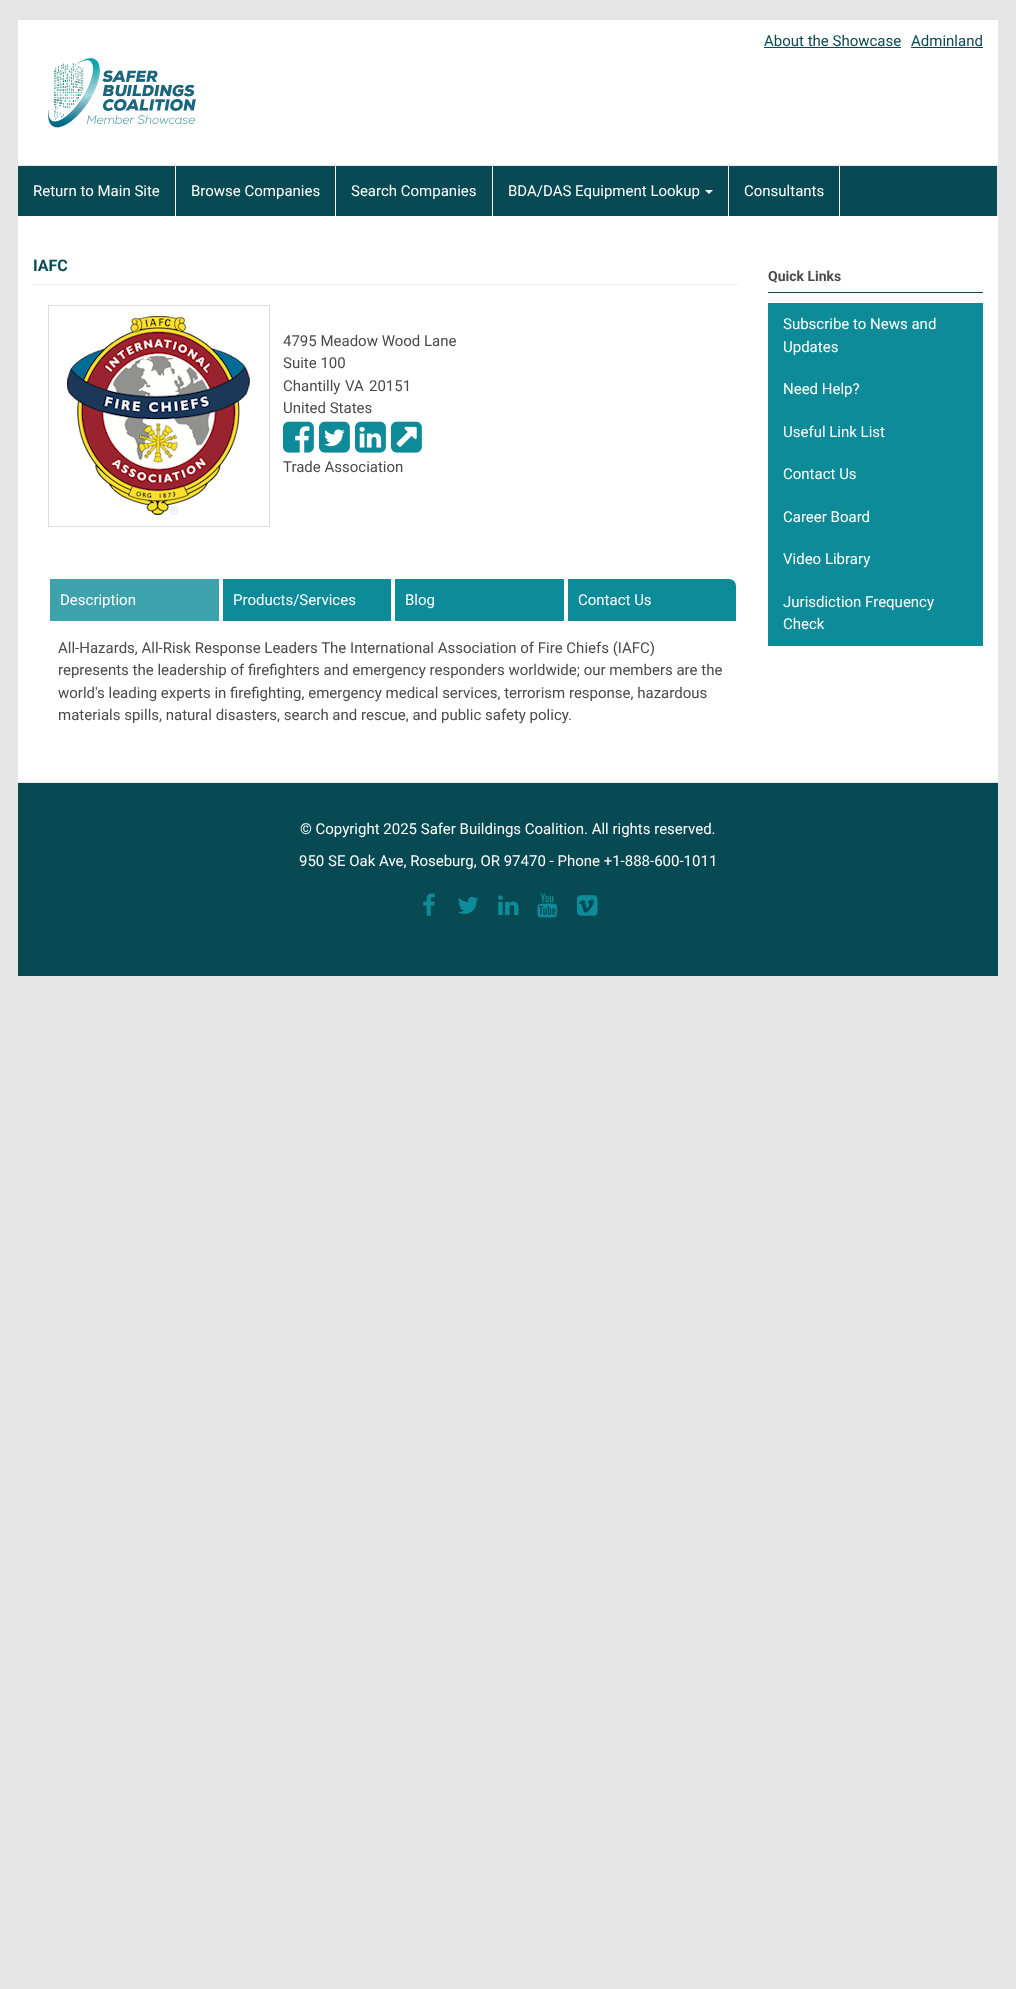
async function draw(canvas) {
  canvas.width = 1016
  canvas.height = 1989
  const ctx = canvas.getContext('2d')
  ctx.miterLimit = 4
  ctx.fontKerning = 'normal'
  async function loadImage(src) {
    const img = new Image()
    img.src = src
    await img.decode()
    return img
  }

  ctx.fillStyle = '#e6e6e6'
  ctx.fillRect(0, 0, 1016, 1989)
  ctx.fillStyle = '#fff'
  ctx.fillRect(18, 20, 980, 762)
  ctx.font = '15px Roboto'
  ctx.fillStyle = '#074a53'
  ctx.fillText('About the Showcase', 764, 46)
  ctx.fillRect(764, 47, 137, 1)
  ctx.fillText('Adminland', 911, 46)
  ctx.fillRect(911, 47, 72, 1)
  ctx.drawImage(await loadImage('image0.png'), 48, 58, 148, 70)
  ctx.fillRect(18, 166, 979, 50)
  ctx.fillStyle = '#e7e7e7'
  ctx.fillRect(18, 165, 980, 1)
  ctx.fillRect(997, 165, 1, 52)
  ctx.fillStyle = '#fff'
  ctx.fillRect(997, 216, 1, 1)
  ctx.fillRect(175, 166, 1, 50)
  ctx.fillText('Return to Main Site', 33, 196)
  ctx.fillRect(335, 166, 1, 50)
  ctx.fillText('Browse Companies', 191, 196)
  ctx.fillRect(492, 166, 1, 50)
  ctx.fillText('Search Companies', 351, 196)
  ctx.fillRect(728, 166, 1, 50)
  ctx.fillText('BDA/DAS Equipment Lookup', 508, 196)
  ctx.beginPath()
  ctx.moveTo(705, 190)
  ctx.lineTo(713, 190)
  ctx.lineTo(709, 194)
  ctx.closePath()
  ctx.fill()
  ctx.fillRect(839, 166, 1, 50)
  ctx.fillText('Consultants', 744, 196)
  ctx.fillStyle = '#eee'
  ctx.fillRect(33, 284, 705, 1)
  ctx.font = 'bold 16px Roboto'
  ctx.fillStyle = '#074a53'
  ctx.fillText('IAFC', 33, 271)
  ctx.strokeStyle = '#ddd'
  ctx.strokeRect(48.5, 305.5, 221, 221)
  ctx.drawImage(await loadImage('image1.png'), 67, 316, 183, 199)
  ctx.font = '15px Roboto'
  ctx.fillStyle = '#4a4a4a'
  ctx.fillText('4795 Meadow Wood Lane', 283, 346)
  ctx.fillText('Suite 100', 283, 368)
  ctx.fillText('Chantilly', 283, 391)
  ctx.fillText('VA', 345, 391)
  ctx.fillText('20151', 369, 391)
  ctx.fillText('United States', 283, 413)
  ctx.drawImage(await loadImage('image2.png'), 283, 421, 31, 32)
  ctx.drawImage(await loadImage('image3.png'), 319, 421, 31, 32)
  ctx.drawImage(await loadImage('image4.png'), 355, 421, 31, 32)
  ctx.drawImage(await loadImage('image5.png'), 391, 421, 31, 32)
  ctx.fillText('Trade Association', 283, 472)
  ctx.fillStyle = '#3ea2ad'
  ctx.fillRect(50, 579, 169, 42)
  ctx.fillStyle = '#fff'
  ctx.fillText('Description', 60, 605)
  ctx.fillStyle = '#0e8b98'
  ctx.fillRect(223, 579, 168, 42)
  ctx.fillStyle = '#fff'
  ctx.fillText('Products/Services', 233, 605)
  ctx.fillStyle = '#0e8b98'
  ctx.fillRect(395, 579, 169, 42)
  ctx.fillStyle = '#fff'
  ctx.fillText('Blog', 405, 605)
  ctx.fillStyle = '#0e8b98'
  ctx.beginPath()
  ctx.roundRect(567.5, 578.5, 169, 43, [0, 7.5, 0, 0])
  ctx.fill()
  ctx.strokeStyle = '#fff'
  ctx.stroke()
  ctx.fillStyle = '#fff'
  ctx.fillText('Contact Us', 578, 605)
  ctx.fillStyle = '#4a4a4a'
  ctx.fillText('All-Hazards, All-Risk Response Leaders The International Association of Fire Chiefs (IAFC)', 58, 653)
  ctx.fillText('represents the leadership of firefighters and emergency responders worldwide; our members are the', 58, 675)
  ctx.fillText('world\'s leading experts in firefighting, emergency medical services, terrorism response, hazardous', 58, 698)
  ctx.fillText('materials spills, natural disasters, search and rescue, and public safety policy.', 58, 720)
  ctx.fillStyle = '#074a53'
  ctx.fillRect(768, 292, 215, 1)
  ctx.font = 'bold 14px Roboto'
  ctx.fillStyle = '#4a4a4a'
  ctx.fillText('Quick Links', 768, 281)
  ctx.fillStyle = '#0e8b98'
  ctx.fillRect(768, 303, 215, 343)
  ctx.font = '15px Roboto'
  ctx.fillStyle = '#fff'
  ctx.fillText('Subscribe to News and', 783, 329)
  ctx.fillText('Updates', 783, 352)
  ctx.fillText('Need Help?', 783, 394)
  ctx.fillText('Useful Link List', 783, 437)
  ctx.fillText('Contact Us', 783, 479)
  ctx.fillText('Career Board', 783, 522)
  ctx.fillText('Video Library', 783, 564)
  ctx.fillText('Jurisdiction Frequency', 783, 607)
  ctx.fillText('Check', 783, 629)
  ctx.fillStyle = '#074a53'
  ctx.fillRect(18, 783, 980, 193)
  ctx.fillStyle = '#fff'
  ctx.fillText('© Copyright 2025 Safer Buildings Coalition. All rights reserved.', 300, 834)
  ctx.fillText('950 SE Oak Ave, Roseburg, OR 97470 - Phone +1-888-600-1011', 299, 866)
  ctx.drawImage(await loadImage('image6.png'), 423, 893, 12, 23)
  ctx.drawImage(await loadImage('image7.png'), 458, 896, 21, 18)
  ctx.drawImage(await loadImage('image8.png'), 498, 895, 21, 21)
  ctx.drawImage(await loadImage('image9.png'), 537, 893, 21, 25)
  ctx.drawImage(await loadImage('image10.png'), 577, 895, 21, 21)
}

draw(document.querySelector('canvas'))
